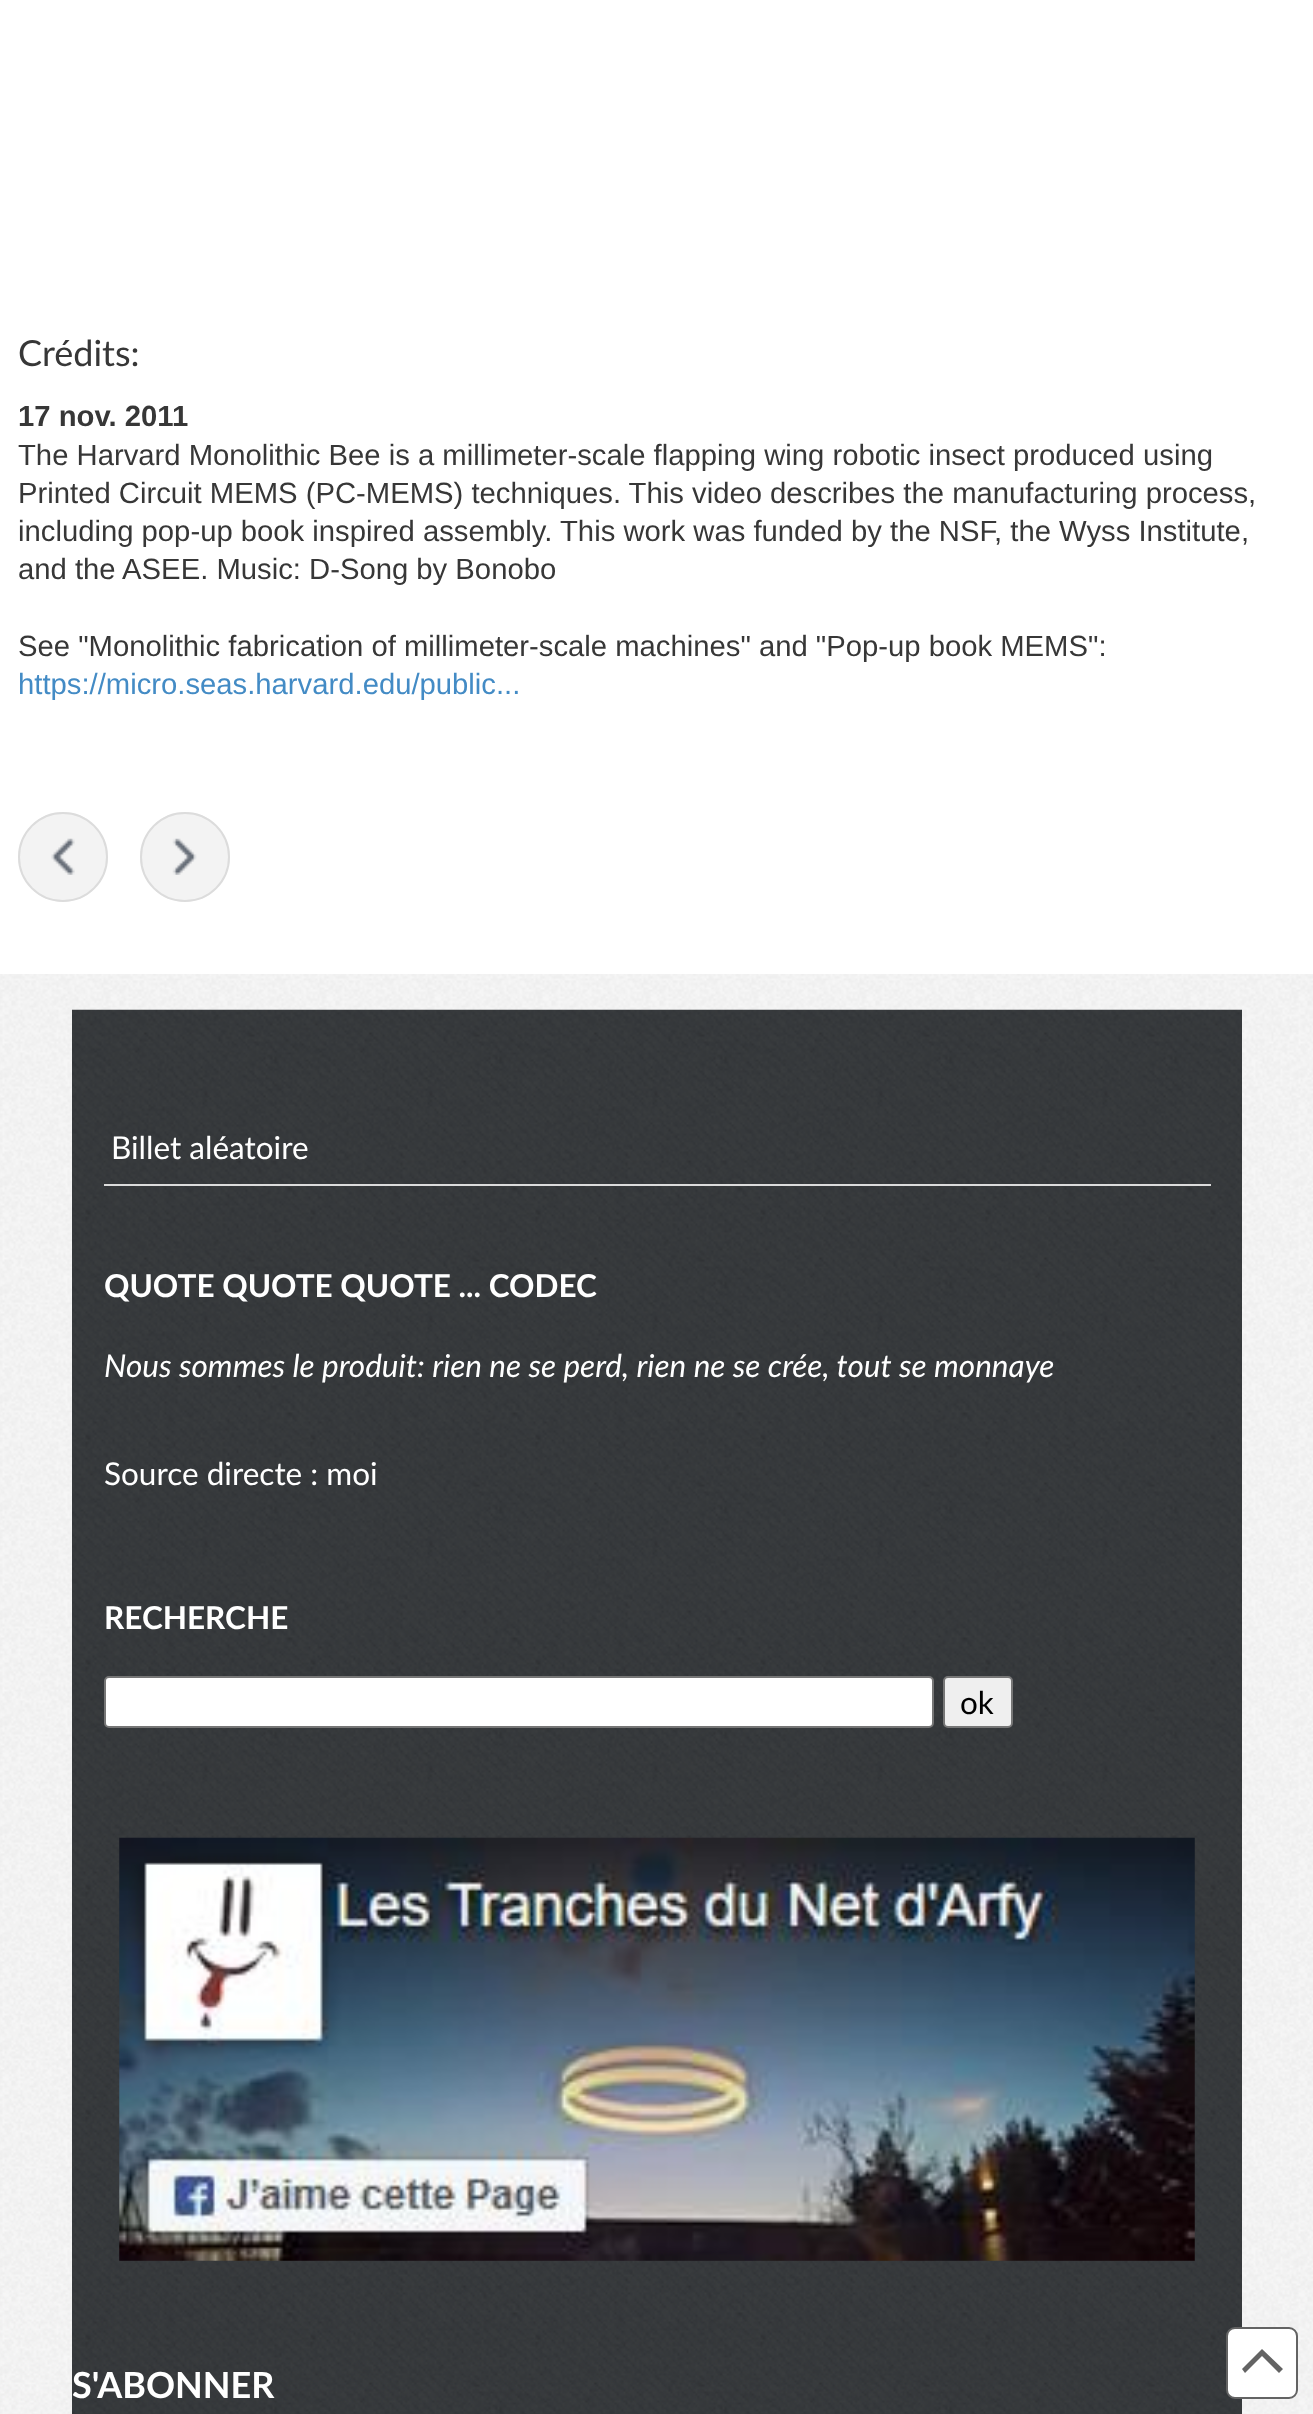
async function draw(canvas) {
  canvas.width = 1313
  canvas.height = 2414
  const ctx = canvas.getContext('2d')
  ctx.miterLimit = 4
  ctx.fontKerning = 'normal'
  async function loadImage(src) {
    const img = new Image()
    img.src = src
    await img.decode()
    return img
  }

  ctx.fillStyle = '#fff'
  ctx.fillRect(0, 0, 1313, 2414)
  ctx.drawImage(await loadImage('image0.png'), 0, 974, 1313, 1440)
  ctx.font = '36px Lato'
  ctx.fillStyle = '#373737'
  ctx.fillText('Crédits:', 18, 366)
  ctx.font = 'bold 29.25px Liberation Sans'
  ctx.fillText('17 nov. 2011', 18, 426)
  ctx.font = '29.25px Liberation Sans'
  ctx.fillText('The Harvard Monolithic Bee is a millimeter-scale flapping wing robotic insect produced using', 18, 465)
  ctx.fillText('Printed Circuit MEMS (PC-MEMS) techniques. This video describes the manufacturing process,', 18, 503)
  ctx.fillText('including pop-up book inspired assembly. This work was funded by the NSF, the Wyss Institute,', 18, 541)
  ctx.fillText('and the ASEE. Music: D-Song by Bonobo', 18, 579)
  ctx.fillText('See "Monolithic fabrication of millimeter-scale machines" and "Pop-up book MEMS":', 18, 656)
  ctx.fillStyle = '#438bc5'
  ctx.fillText('https://micro.seas.harvard.edu/public...', 18, 694)
  ctx.fillStyle = '#f3f3f3'
  ctx.beginPath()
  ctx.arc(63, 857, 45, 0, 2 * Math.PI)
  ctx.fill()
  ctx.drawImage(await loadImage('image1.png'), 51, 838, 24, 37)
  ctx.beginPath()
  ctx.arc(63, 857, 44, 0, 2 * Math.PI)
  ctx.strokeStyle = '#dcdcdc'
  ctx.lineWidth = 2
  ctx.stroke()
  ctx.beginPath()
  ctx.arc(185, 857, 45, 0, 2 * Math.PI)
  ctx.fill()
  ctx.drawImage(await loadImage('image2.png'), 172, 838, 25, 37)
  ctx.beginPath()
  ctx.arc(185, 857, 44, 0, 2 * Math.PI)
  ctx.stroke()
  ctx.drawImage(await loadImage('image3.png'), 72, 1009, 1170, 1405)
  ctx.fillStyle = '#dcdcdc'
  ctx.fillRect(104, 1184, 1107, 2)
  ctx.font = '31.5px Lato'
  ctx.fillStyle = '#fff'
  ctx.fillText('Billet aléatoire', 111, 1159)
  ctx.font = 'bold 31.5px Lato'
  ctx.fillText('QUOTE QUOTE QUOTE ... CODEC', 104, 1297)
  ctx.font = 'italic 31.5px Lato'
  ctx.fillText('Nous sommes le produit: rien ne se perd, rien ne se crée, tout se monnaye', 104, 1377)
  ctx.font = '31.5px Lato'
  ctx.fillText('Source directe : moi', 104, 1485)
  ctx.font = 'bold 31.5px Lato'
  ctx.fillText('RECHERCHE', 104, 1629)
  ctx.beginPath()
  ctx.roundRect(105, 1677, 828, 50, 4)
  ctx.fill()
  ctx.strokeStyle = '#767676'
  ctx.stroke()
  ctx.fillStyle = '#efefef'
  ctx.beginPath()
  ctx.roundRect(944, 1677, 68, 50, 4)
  ctx.fill()
  ctx.stroke()
  ctx.font = '31.5px Lato'
  ctx.fillStyle = '#000'
  ctx.fillText('ok', 960, 1714)
  ctx.drawImage(await loadImage('image4.png'), 119, 1837, 1076, 424)
  ctx.font = 'bold 36px Lato'
  ctx.fillStyle = '#fff'
  ctx.fillText('S\'ABONNER', 72, 2398)
  ctx.beginPath()
  ctx.roundRect(1227, 2328, 70, 70, 8)
  ctx.fill()
  ctx.strokeStyle = '#636363'
  ctx.stroke()
  ctx.fillStyle = '#636363'
  ctx.beginPath()
  ctx.moveTo(1283, 2369)
  ctx.lineTo(1279, 2373)
  ctx.lineTo(1262, 2356)
  ctx.lineTo(1245, 2373)
  ctx.lineTo(1242, 2369)
  ctx.lineTo(1262, 2349)
  ctx.closePath()
  ctx.fill()
}

draw(document.querySelector('canvas'))
